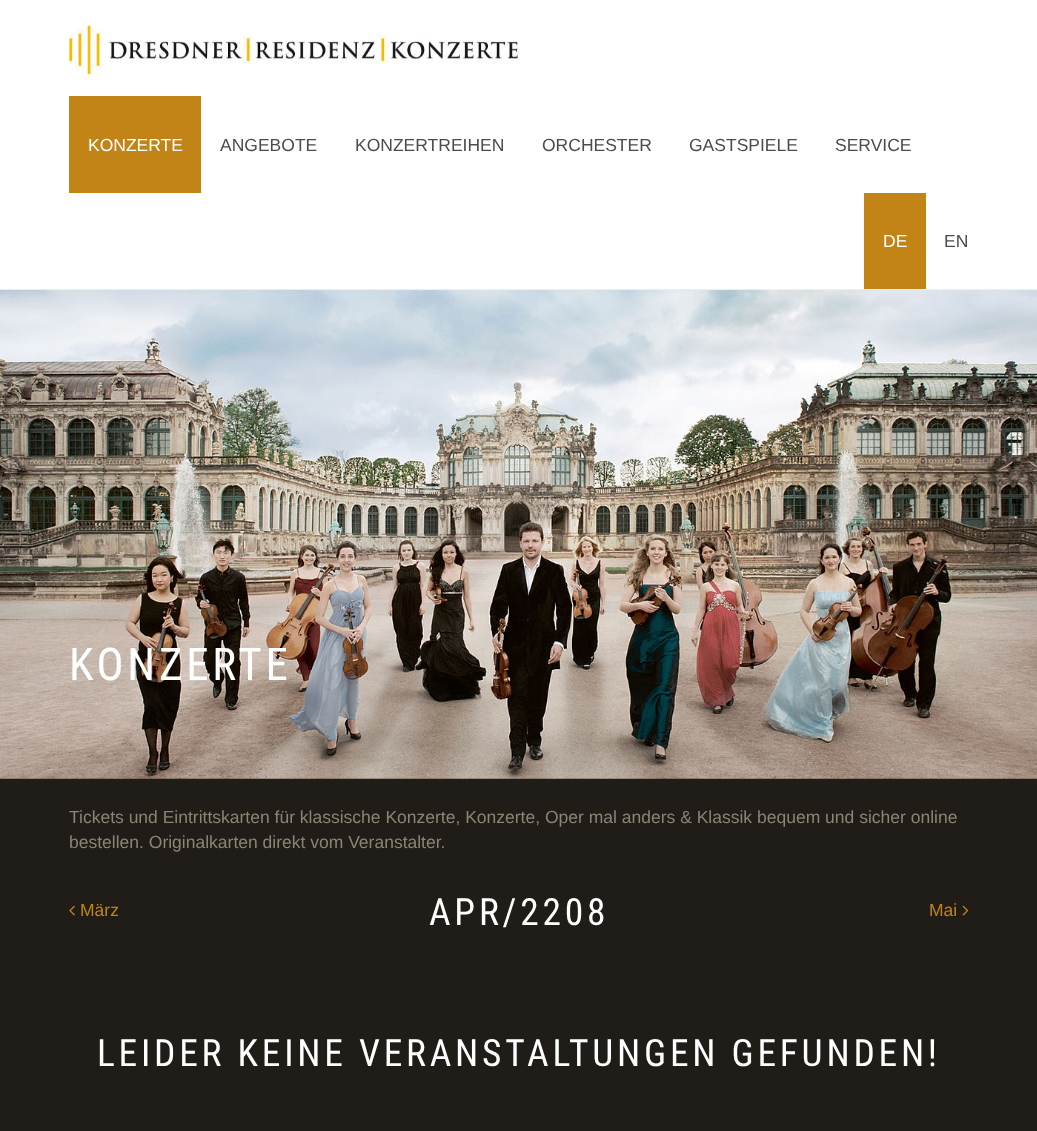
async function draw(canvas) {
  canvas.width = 1037
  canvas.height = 1131
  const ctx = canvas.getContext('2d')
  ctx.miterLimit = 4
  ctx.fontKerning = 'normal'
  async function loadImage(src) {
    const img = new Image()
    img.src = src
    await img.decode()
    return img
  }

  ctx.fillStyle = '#201c17'
  ctx.fillRect(0, 0, 1037, 1131)
  ctx.fillStyle = '#fff'
  ctx.fillRect(0, 0, 1037, 289)
  ctx.fillStyle = '#eee'
  ctx.fillRect(0, 289, 1037, 1)
  ctx.drawImage(await loadImage('image0.png'), 69, 25, 450, 50)
  ctx.fillStyle = '#c28317'
  ctx.fillRect(69, 96, 132, 97)
  ctx.font = '17.5px Liberation Sans'
  ctx.fillStyle = '#fff'
  ctx.fillText('KONZERTE', 88, 151)
  ctx.fillStyle = '#4e4c4a'
  ctx.fillText('ANGEBOTE', 220, 151)
  ctx.fillText('KONZERTREIHEN', 355, 151)
  ctx.fillText('ORCHESTER', 542, 151)
  ctx.fillText('GASTSPIELE', 689, 151)
  ctx.fillText('SERVICE', 835, 151)
  ctx.fillStyle = '#c28317'
  ctx.fillRect(864, 193, 62, 96)
  ctx.fillStyle = '#fff'
  ctx.fillText('DE', 883, 247)
  ctx.fillStyle = '#4e4c4a'
  ctx.fillText('EN', 944, 247)
  ctx.drawImage(await loadImage('image1.png'), 0, 290, 1037, 489)
  ctx.letterSpacing = '3.75px'
  ctx.font = '45px Roboto Condensed'
  ctx.fillStyle = '#fff'
  ctx.fillText('KONZERTE', 69, 680)
  ctx.letterSpacing = '0px'
  ctx.font = '17.5px Liberation Sans'
  ctx.fillStyle = '#8c8474'
  ctx.fillText('Tickets und Eintrittskarten für klassische Konzerte, Konzerte, Oper mal anders & Klassik bequem und sicher online', 69, 823)
  ctx.fillText('bestellen. Originalkarten direkt vom Veranstalter.', 69, 848)
  ctx.drawImage(await loadImage('image2.png'), 69, 905, 6, 11)
  ctx.fillStyle = '#c28317'
  ctx.fillText('März', 80, 916)
  ctx.letterSpacing = '3.75px'
  ctx.font = '37.5px Roboto Condensed'
  ctx.fillStyle = '#fff'
  ctx.fillText('APR/2208', 429, 925)
  ctx.letterSpacing = '0px'
  ctx.font = '17.5px Liberation Sans'
  ctx.fillStyle = '#c28317'
  ctx.fillText('Mai', 929, 916)
  ctx.drawImage(await loadImage('image3.png'), 962, 905, 7, 11)
  ctx.letterSpacing = '3.75px'
  ctx.font = '37.5px Roboto Condensed'
  ctx.fillStyle = '#fff'
  ctx.fillText('LEIDER KEINE VERANSTALTUNGEN GEFUNDEN!', 97, 1066)
}

draw(document.querySelector('canvas'))
